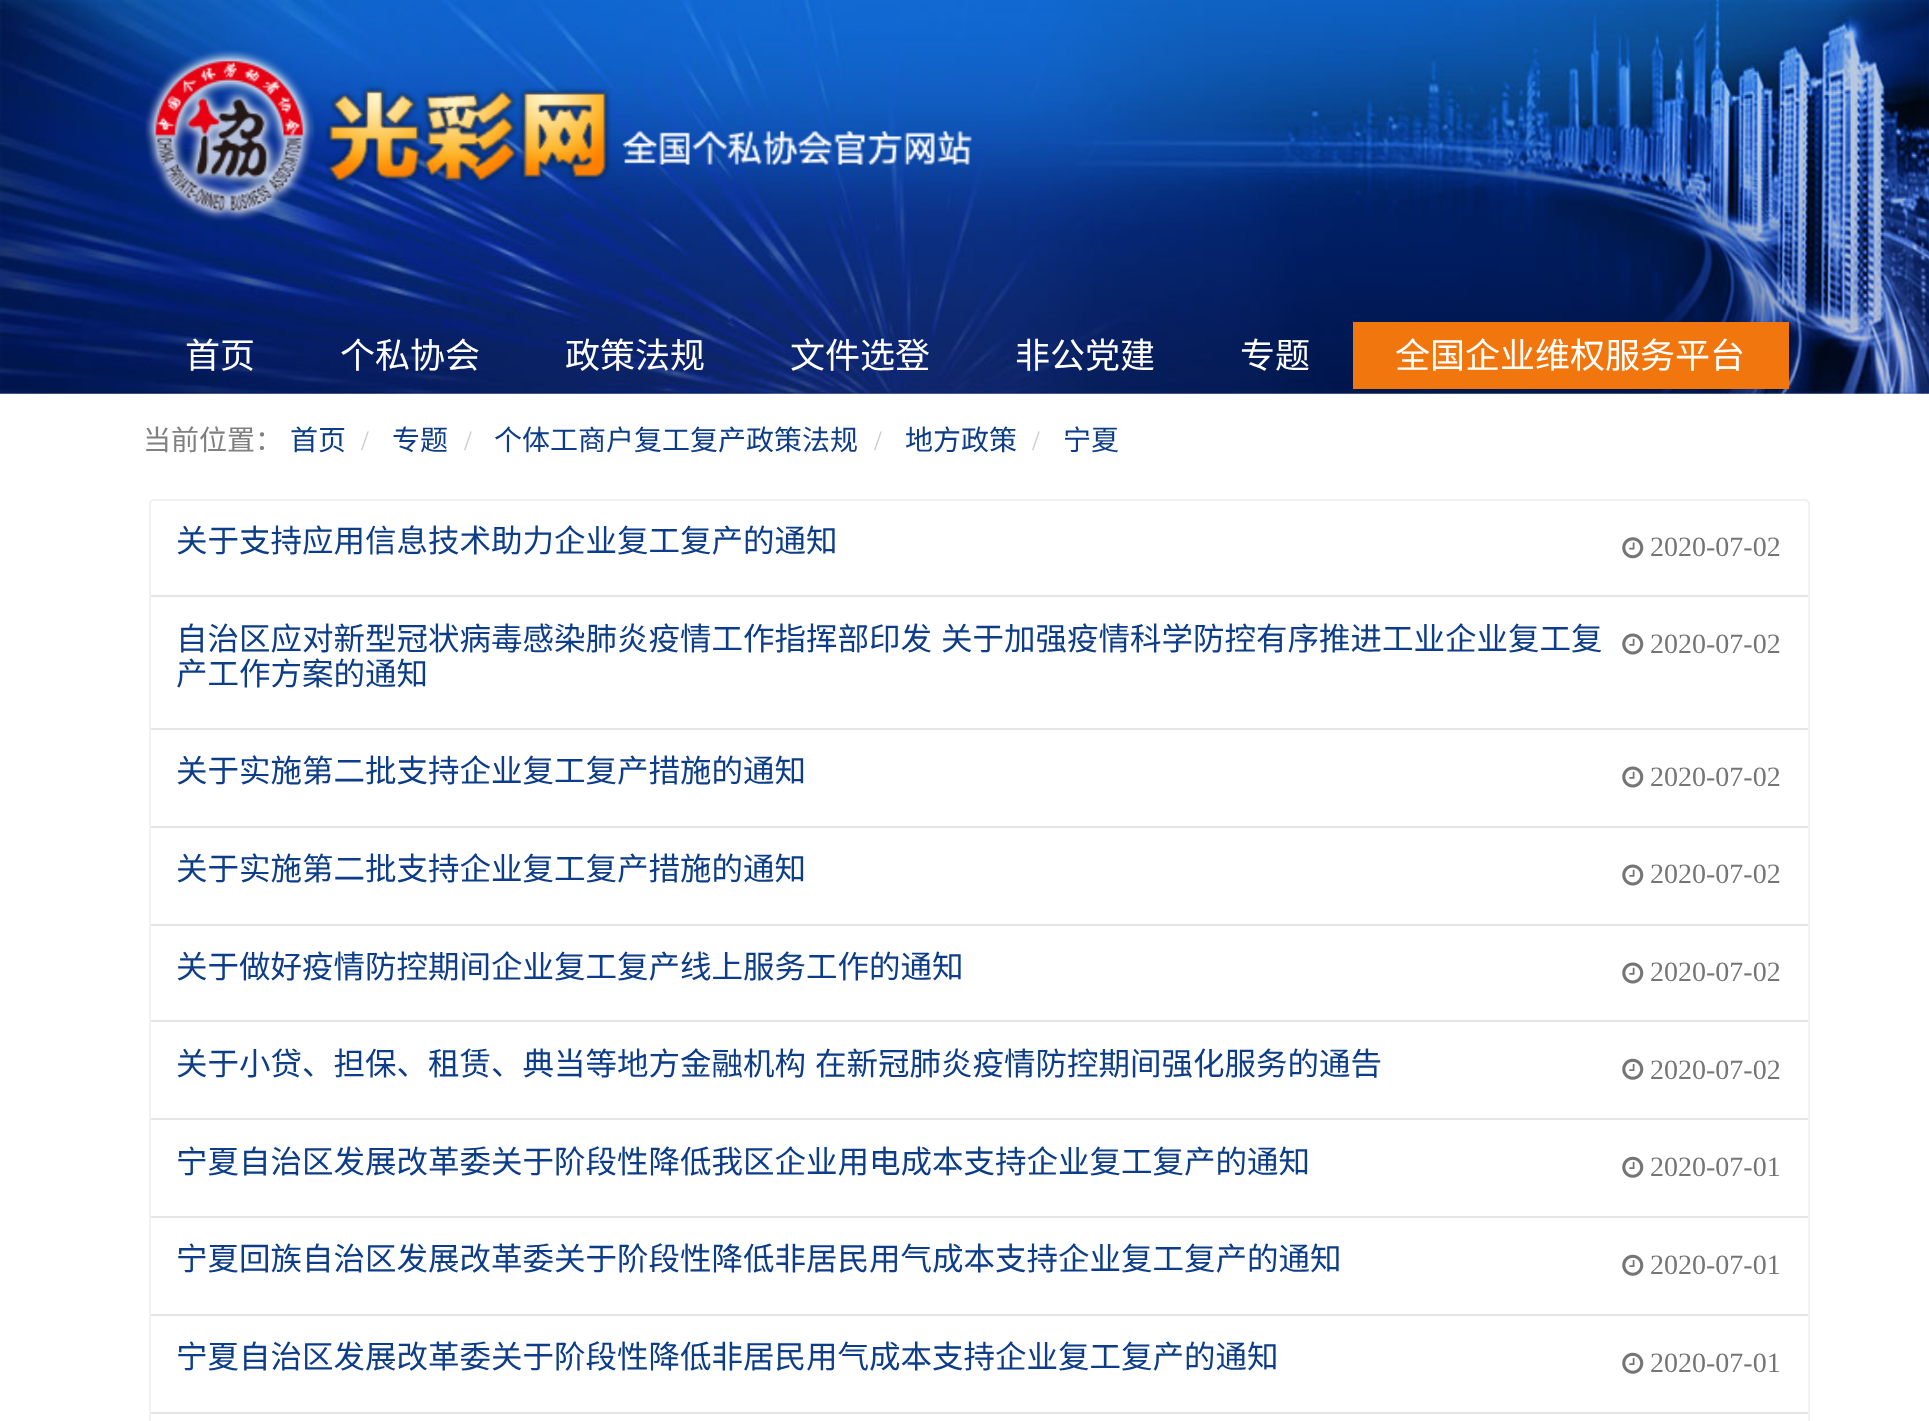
async function draw(canvas) {
  canvas.width = 1929
  canvas.height = 1421
  const ctx = canvas.getContext('2d')
  ctx.miterLimit = 4
  ctx.fontKerning = 'normal'
  async function loadImage(src) {
    const img = new Image()
    img.src = src
    await img.decode()
    return img
  }

  ctx.fillStyle = '#fff'
  ctx.fillRect(0, 0, 1929, 1421)
  ctx.drawImage(await loadImage('image0.png'), 0, 0, 1929, 394)
  ctx.drawImage(await loadImage('image1.png'), 145, 50, 827, 171)
  ctx.font = '35px Noto Sans CJK SC'
  ctx.fillText('首页', 185, 368)
  ctx.fillText('个私协会', 340, 368)
  ctx.fillText('政策法规', 565, 368)
  ctx.fillText('文件选登', 790, 368)
  ctx.fillText('非公党建', 1015, 368)
  ctx.fillText('专题', 1240, 368)
  ctx.fillStyle = '#f2760e'
  ctx.fillRect(1353, 322, 436, 67)
  ctx.fillStyle = '#fff'
  ctx.fillText('全国企业维权服务平台', 1395, 368)
  ctx.font = '28px Noto Sans CJK SC'
  ctx.fillStyle = '#808080'
  ctx.fillText('当前位置：', 143, 450)
  ctx.fillStyle = '#0d3d88'
  ctx.fillText('首页', 290, 450)
  ctx.font = '28px Liberation Serif'
  ctx.fillStyle = '#ccc'
  ctx.fillText('/', 361, 450)
  ctx.font = '28px Noto Sans CJK SC'
  ctx.fillStyle = '#0d3d88'
  ctx.fillText('专题', 392, 450)
  ctx.font = '28px Liberation Serif'
  ctx.fillStyle = '#ccc'
  ctx.fillText('/', 464, 450)
  ctx.font = '28px Noto Sans CJK SC'
  ctx.fillStyle = '#0d3d88'
  ctx.fillText('个体工商户复工复产政策法规', 494, 450)
  ctx.font = '28px Liberation Serif'
  ctx.fillStyle = '#ccc'
  ctx.fillText('/', 874, 450)
  ctx.font = '28px Noto Sans CJK SC'
  ctx.fillStyle = '#0d3d88'
  ctx.fillText('地方政策', 905, 450)
  ctx.font = '28px Liberation Serif'
  ctx.fillStyle = '#ccc'
  ctx.fillText('/', 1032, 450)
  ctx.font = '28px Noto Sans CJK SC'
  ctx.fillStyle = '#0d3d88'
  ctx.fillText('宁夏', 1063, 450)
  ctx.beginPath()
  ctx.roundRect(150, 500, 1659, 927, 4)
  ctx.strokeStyle = '#f1f1f1'
  ctx.lineWidth = 2
  ctx.stroke()
  ctx.fillStyle = '#e5e5e5'
  ctx.fillRect(151, 595, 1657, 2)
  ctx.font = '31.5px Noto Sans CJK SC'
  ctx.fillStyle = '#0d3d88'
  ctx.fillText('关于支持应用信息技术助力企业复工复产的通知', 176, 552)
  ctx.drawImage(await loadImage('image2.png'), 1622, 537, 22, 22)
  ctx.font = '28px Liberation Serif'
  ctx.fillStyle = '#757575'
  ctx.fillText('2020-07-02', 1650, 556)
  ctx.fillStyle = '#e5e5e5'
  ctx.fillRect(151, 728, 1657, 2)
  ctx.wordSpacing = '2px'
  ctx.font = '31.5px Noto Sans CJK SC'
  ctx.fillStyle = '#0d3d88'
  ctx.fillText('自治区应对新型冠状病毒感染肺炎疫情工作指挥部印发 关于加强疫情科学防控有序推进工业企业复工复', 176, 650)
  ctx.wordSpacing = '0px'
  ctx.fillText('产工作方案的通知', 176, 685)
  ctx.drawImage(await loadImage('image3.png'), 1622, 633, 22, 22)
  ctx.font = '28px Liberation Serif'
  ctx.fillStyle = '#757575'
  ctx.fillText('2020-07-02', 1650, 653)
  ctx.fillStyle = '#e5e5e5'
  ctx.fillRect(151, 826, 1657, 2)
  ctx.font = '31.5px Noto Sans CJK SC'
  ctx.fillStyle = '#0d3d88'
  ctx.fillText('关于实施第二批支持企业复工复产措施的通知', 176, 782)
  ctx.drawImage(await loadImage('image3.png'), 1622, 766, 22, 22)
  ctx.font = '28px Liberation Serif'
  ctx.fillStyle = '#757575'
  ctx.fillText('2020-07-02', 1650, 786)
  ctx.fillStyle = '#e5e5e5'
  ctx.fillRect(151, 924, 1657, 2)
  ctx.font = '31.5px Noto Sans CJK SC'
  ctx.fillStyle = '#0d3d88'
  ctx.fillText('关于实施第二批支持企业复工复产措施的通知', 176, 880)
  ctx.drawImage(await loadImage('image3.png'), 1622, 864, 22, 22)
  ctx.font = '28px Liberation Serif'
  ctx.fillStyle = '#757575'
  ctx.fillText('2020-07-02', 1650, 883)
  ctx.fillStyle = '#e5e5e5'
  ctx.fillRect(151, 1020, 1657, 2)
  ctx.font = '31.5px Noto Sans CJK SC'
  ctx.fillStyle = '#0d3d88'
  ctx.fillText('关于做好疫情防控期间企业复工复产线上服务工作的通知', 176, 978)
  ctx.drawImage(await loadImage('image3.png'), 1622, 962, 22, 22)
  ctx.font = '28px Liberation Serif'
  ctx.fillStyle = '#757575'
  ctx.fillText('2020-07-02', 1650, 981)
  ctx.fillStyle = '#e5e5e5'
  ctx.fillRect(151, 1118, 1657, 2)
  ctx.wordSpacing = '2px'
  ctx.font = '31.5px Noto Sans CJK SC'
  ctx.fillStyle = '#0d3d88'
  ctx.fillText('关于小贷、担保、租赁、典当等地方金融机构 在新冠肺炎疫情防控期间强化服务的通告', 176, 1075)
  ctx.drawImage(await loadImage('image4.png'), 1622, 1058, 22, 22)
  ctx.wordSpacing = '0px'
  ctx.font = '28px Liberation Serif'
  ctx.fillStyle = '#757575'
  ctx.fillText('2020-07-02', 1650, 1079)
  ctx.fillStyle = '#e5e5e5'
  ctx.fillRect(151, 1216, 1657, 2)
  ctx.font = '31.5px Noto Sans CJK SC'
  ctx.fillStyle = '#0d3d88'
  ctx.fillText('宁夏自治区发展改革委关于阶段性降低我区企业用电成本支持企业复工复产的通知', 176, 1173)
  ctx.drawImage(await loadImage('image4.png'), 1622, 1156, 22, 22)
  ctx.font = '28px Liberation Serif'
  ctx.fillStyle = '#757575'
  ctx.fillText('2020-07-01', 1650, 1176)
  ctx.fillStyle = '#e5e5e5'
  ctx.fillRect(151, 1314, 1657, 2)
  ctx.font = '31.5px Noto Sans CJK SC'
  ctx.fillStyle = '#0d3d88'
  ctx.fillText('宁夏回族自治区发展改革委关于阶段性降低非居民用气成本支持企业复工复产的通知', 176, 1270)
  ctx.drawImage(await loadImage('image4.png'), 1622, 1254, 22, 22)
  ctx.font = '28px Liberation Serif'
  ctx.fillStyle = '#757575'
  ctx.fillText('2020-07-01', 1650, 1274)
  ctx.fillStyle = '#e5e5e5'
  ctx.fillRect(151, 1412, 1657, 2)
  ctx.font = '31.5px Noto Sans CJK SC'
  ctx.fillStyle = '#0d3d88'
  ctx.fillText('宁夏自治区发展改革委关于阶段性降低非居民用气成本支持企业复工复产的通知', 176, 1368)
  ctx.drawImage(await loadImage('image4.png'), 1622, 1352, 22, 22)
  ctx.font = '28px Liberation Serif'
  ctx.fillStyle = '#757575'
  ctx.fillText('2020-07-01', 1650, 1372)
}

draw(document.querySelector('canvas'))
